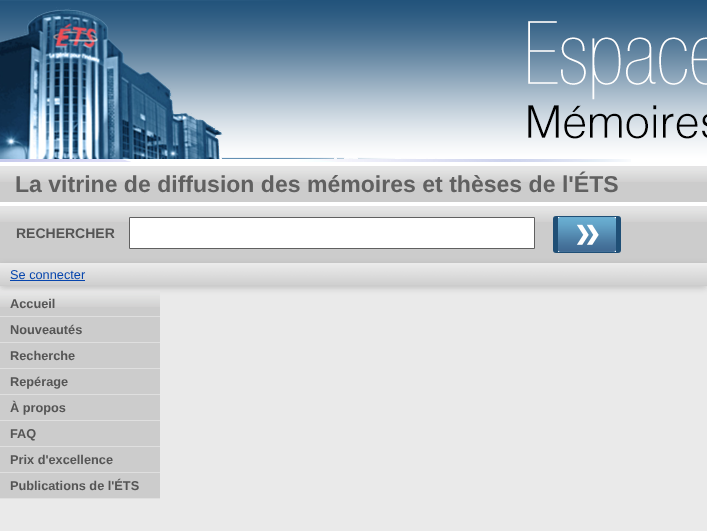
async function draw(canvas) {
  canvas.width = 707
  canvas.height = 531
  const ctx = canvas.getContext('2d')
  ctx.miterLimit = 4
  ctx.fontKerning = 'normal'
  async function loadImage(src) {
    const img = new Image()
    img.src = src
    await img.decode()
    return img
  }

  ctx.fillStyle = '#eaeaea'
  ctx.fillRect(0, 0, 707, 531)
  ctx.fillStyle = '#fff'
  ctx.fillRect(0, 159, 707, 7)
  ctx.drawImage(await loadImage('image0.png'), 0, 159, 631, 3)
  ctx.drawImage(await loadImage('image1.png'), 0, 0, 707, 159)
  ctx.fillStyle = '#ccc'
  ctx.fillRect(0, 182, 707, 20)
  ctx.drawImage(await loadImage('image2.png'), 0, 166, 707, 16)
  ctx.font = 'bold 23.05px Liberation Sans'
  ctx.fillStyle = '#606060'
  ctx.fillText('La vitrine de diffusion des mémoires et thèses de l\'ÉTS', 15, 192)
  ctx.fillStyle = '#ccc'
  ctx.fillRect(0, 222, 707, 41)
  ctx.drawImage(await loadImage('image2.png'), 0, 206, 707, 16)
  ctx.fillStyle = '#fff'
  ctx.fillRect(0, 202, 707, 4)
  ctx.font = 'bold 14px Liberation Sans'
  ctx.fillStyle = '#555'
  ctx.fillText('RECHERCHER', 16, 238)
  ctx.fillStyle = '#fff'
  ctx.beginPath()
  ctx.rect(129.5, 217.5, 405, 31)
  ctx.fill()
  ctx.strokeStyle = '#606060'
  ctx.stroke()
  ctx.fillStyle = '#1f4f76'
  ctx.beginPath()
  ctx.roundRect(553, 216, 68, 37, 3)
  ctx.fill()
  ctx.drawImage(await loadImage('image3.png'), 558, 217, 58, 35)
  ctx.fillStyle = '#6464644d'
  ctx.filter = 'blur(3px)'
  ctx.beginPath()
  ctx.rect(0, 265, 707, 23)
  ctx.fill()
  ctx.filter = 'none'
  ctx.fillStyle = '#ccc'
  ctx.fillRect(0, 263, 707, 23)
  ctx.drawImage(await loadImage('image4.png'), 0, 263, 707, 22)
  ctx.font = '12.75px Liberation Sans'
  ctx.fillStyle = '#0645ad'
  ctx.fillText('Se connecter', 10, 279)
  ctx.fillRect(10, 280, 75, 1)
  ctx.fillStyle = '#ccc'
  ctx.fillRect(0, 307, 160, 191)
  ctx.drawImage(await loadImage('image5.png'), 0, 291, 160, 16)
  ctx.fillStyle = '#dfdfdf'
  ctx.fillRect(0, 316, 160, 1)
  ctx.font = 'bold 12.75px Liberation Sans'
  ctx.fillStyle = '#555'
  ctx.fillText('Accueil', 10, 308)
  ctx.fillStyle = '#dfdfdf'
  ctx.fillRect(0, 342, 160, 1)
  ctx.fillStyle = '#555'
  ctx.fillText('Nouveautés', 10, 334)
  ctx.fillStyle = '#dfdfdf'
  ctx.fillRect(0, 368, 160, 1)
  ctx.fillStyle = '#555'
  ctx.fillText('Recherche', 10, 360)
  ctx.fillStyle = '#dfdfdf'
  ctx.fillRect(0, 394, 160, 1)
  ctx.fillStyle = '#555'
  ctx.fillText('Repérage', 10, 386)
  ctx.fillStyle = '#dfdfdf'
  ctx.fillRect(0, 420, 160, 1)
  ctx.fillStyle = '#555'
  ctx.fillText('À propos', 10, 412)
  ctx.fillStyle = '#dfdfdf'
  ctx.fillRect(0, 446, 160, 1)
  ctx.fillStyle = '#555'
  ctx.fillText('FAQ', 10, 438)
  ctx.fillStyle = '#dfdfdf'
  ctx.fillRect(0, 472, 160, 1)
  ctx.fillStyle = '#555'
  ctx.fillText('Prix d\'excellence', 10, 464)
  ctx.fillStyle = '#dfdfdf'
  ctx.fillRect(0, 498, 160, 1)
  ctx.fillStyle = '#555'
  ctx.fillText('Publications de l\'ÉTS', 10, 490)
}

draw(document.querySelector('canvas'))
